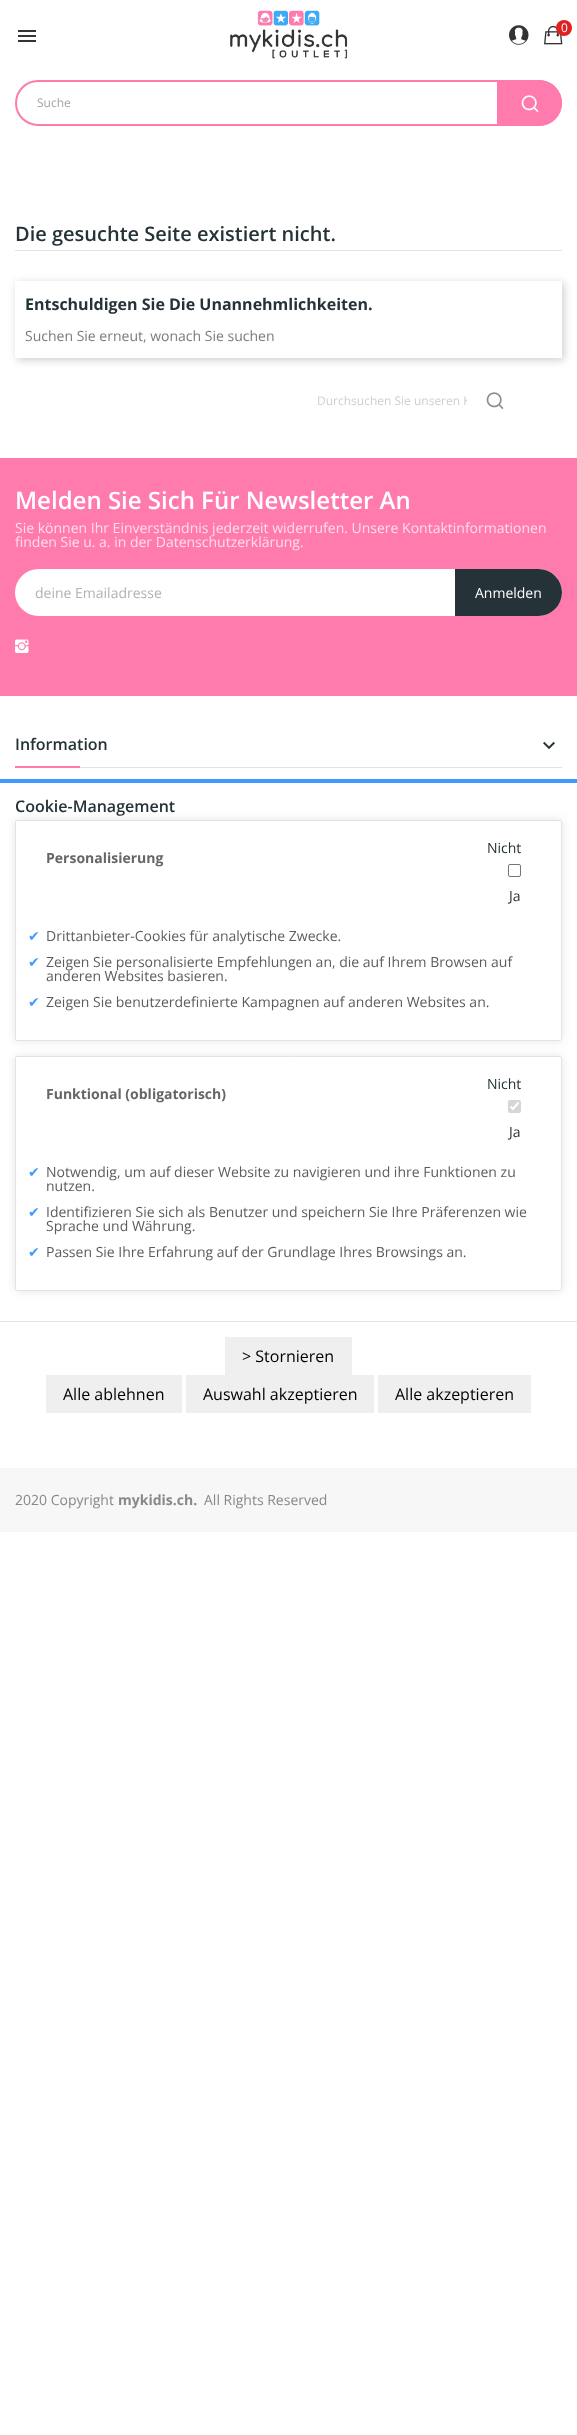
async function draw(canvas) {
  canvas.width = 577
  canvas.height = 2435
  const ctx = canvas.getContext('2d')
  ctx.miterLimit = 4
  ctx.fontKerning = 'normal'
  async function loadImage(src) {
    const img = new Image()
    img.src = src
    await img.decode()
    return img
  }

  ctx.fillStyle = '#fff'
  ctx.fillRect(0, 0, 577, 2435)
  ctx.drawImage(await loadImage('image0.png'), 230, 10, 118, 49)
  ctx.drawImage(await loadImage('image1.png'), 509, 25, 20, 20)
  ctx.drawImage(await loadImage('image2.png'), 544, 25, 19, 20)
  ctx.fillStyle = '#df2121'
  ctx.beginPath()
  ctx.arc(564, 28, 8, 0, 2 * Math.PI)
  ctx.fill()
  ctx.font = '12px Open Sans'
  ctx.fillStyle = '#fff'
  ctx.fillText('0', 561, 32)
  ctx.drawImage(await loadImage('image3.png'), 18, 30, 18, 12)
  ctx.beginPath()
  ctx.roundRect(16, 81, 545, 44, 22)
  ctx.strokeStyle = '#ff7bad'
  ctx.lineWidth = 2
  ctx.stroke()
  ctx.fillStyle = '#a4a4a4'
  ctx.fillText('Suche', 37, 107)
  ctx.fillStyle = '#ff7bad'
  ctx.beginPath()
  ctx.roundRect(497, 80, 65, 46, [0, 23, 23, 0])
  ctx.fill()
  ctx.drawImage(await loadImage('image4.png'), 521, 95, 18, 17)
  ctx.fillStyle = '#e3e3e3'
  ctx.fillRect(15, 250, 547, 1)
  ctx.font = '600 20px Open Sans'
  ctx.fillStyle = '#253237'
  ctx.fillText('Die gesuchte Seite existiert nicht.', 15, 241)
  ctx.save()
  ctx.beginPath()
  ctx.moveTo(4, 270)
  ctx.lineTo(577, 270)
  ctx.lineTo(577, 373)
  ctx.lineTo(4, 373)
  ctx.closePath()
  ctx.moveTo(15, 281)
  ctx.lineTo(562, 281)
  ctx.lineTo(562, 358)
  ctx.lineTo(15, 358)
  ctx.closePath()
  ctx.clip('evenodd')
  ctx.fillStyle = '#00000033'
  ctx.filter = 'blur(4px)'
  ctx.beginPath()
  ctx.rect(17, 283, 547, 77)
  ctx.fill()
  ctx.filter = 'none'
  ctx.restore()
  ctx.font = 'bold 16px Open Sans'
  ctx.fillText('Entschuldigen Sie Die Unannehmlichkeiten.', 25, 310)
  ctx.font = '14px Open Sans'
  ctx.fillStyle = '#7a7a7a'
  ctx.fillText('Suchen Sie erneut, wonach Sie suchen', 25, 341)
  ctx.save()
  ctx.beginPath()
  ctx.rect(317, 392, 150, 17)
  ctx.clip()
  ctx.font = '12px Open Sans'
  ctx.fillStyle = '#cecece'
  ctx.fillText('Durchsuchen Sie unseren K', 317, 405)
  ctx.restore()
  ctx.drawImage(await loadImage('image5.png'), 486, 392, 18, 17)
  ctx.fillStyle = '#ff7bad'
  ctx.fillRect(0, 458, 577, 238)
  ctx.font = '600 24px Open Sans'
  ctx.fillStyle = '#fff'
  ctx.fillText('Melden Sie Sich Für Newsletter An', 15, 509)
  ctx.font = '14px Open Sans'
  ctx.fillStyle = '#ffdeeb'
  ctx.fillText('Sie können Ihr Einverständnis jederzeit widerrufen. Unsere Kontaktinformationen', 15, 533)
  ctx.fillText('finden Sie u. a. in der Datenschutzerklärung.', 15, 547)
  ctx.fillStyle = '#fff'
  ctx.beginPath()
  ctx.roundRect(15, 569, 547, 47, 23.5)
  ctx.fill()
  ctx.fillStyle = '#b1b1b1'
  ctx.fillText('deine Emailadresse', 35, 598)
  ctx.fillStyle = '#253237'
  ctx.beginPath()
  ctx.roundRect(455, 569, 107, 47, [0, 23.5, 23.5, 0])
  ctx.fill()
  ctx.fillStyle = '#fff'
  ctx.fillText('Anmelden', 475, 598)
  ctx.drawImage(await loadImage('image6.png'), 15, 639, 14, 14)
  ctx.fillStyle = '#e3e3e3'
  ctx.fillRect(80, 767, 482, 1)
  ctx.font = '600 16px Open Sans'
  ctx.fillStyle = '#253237'
  ctx.fillText('Information', 15, 750)
  ctx.fillStyle = '#ff7bad'
  ctx.fillRect(15, 766, 65, 2)
  ctx.drawImage(await loadImage('image7.png'), 543, 741, 12, 9)
  ctx.fillStyle = '#3f9bff'
  ctx.fillRect(0, 779, 577, 4)
  ctx.save()
  ctx.beginPath()
  ctx.moveTo(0, 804)
  ctx.lineTo(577, 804)
  ctx.lineTo(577, 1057)
  ctx.lineTo(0, 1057)
  ctx.closePath()
  ctx.moveTo(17, 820)
  ctx.lineTo(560, 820)
  ctx.bezierCurveTo(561, 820, 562, 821, 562, 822)
  ctx.lineTo(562, 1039)
  ctx.bezierCurveTo(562, 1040, 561, 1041, 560, 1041)
  ctx.lineTo(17, 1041)
  ctx.bezierCurveTo(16, 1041, 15, 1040, 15, 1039)
  ctx.lineTo(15, 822)
  ctx.bezierCurveTo(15, 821, 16, 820, 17, 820)
  ctx.closePath()
  ctx.clip('evenodd')
  ctx.fillStyle = '#0000001a'
  ctx.filter = 'blur(5px)'
  ctx.beginPath()
  ctx.roundRect(15, 820, 547, 221, 2)
  ctx.fill()
  ctx.filter = 'none'
  ctx.restore()
  ctx.fillStyle = '#253237'
  ctx.fillText('Cookie-Management', 15, 812)
  ctx.beginPath()
  ctx.roundRect(15.5, 820.5, 546, 220, 1.5)
  ctx.strokeStyle = '#e4e3e3'
  ctx.lineWidth = 1
  ctx.stroke()
  ctx.font = 'bold 14px Open Sans'
  ctx.fillStyle = '#666'
  ctx.fillText('Personalisierung', 46, 863)
  ctx.font = '14px Open Sans'
  ctx.fillStyle = '#253237'
  ctx.fillText('Nicht', 487, 853)
  ctx.beginPath()
  ctx.roundRect(508.5, 864.5, 12, 12, 1.5)
  ctx.strokeStyle = '#767676'
  ctx.stroke()
  ctx.fillText('Ja', 509, 901)
  ctx.font = '14px DejaVu Sans'
  ctx.fillStyle = '#3f9bff'
  ctx.fillText('✔', 28, 941)
  ctx.font = '14px Open Sans'
  ctx.fillStyle = '#5c5c5c'
  ctx.fillText('Drittanbieter-Cookies für analytische Zwecke.', 46, 941)
  ctx.font = '14px DejaVu Sans'
  ctx.fillStyle = '#3f9bff'
  ctx.fillText('✔', 28, 967)
  ctx.font = '14px Open Sans'
  ctx.fillStyle = '#5c5c5c'
  ctx.fillText('Zeigen Sie personalisierte Empfehlungen an, die auf Ihrem Browsen auf', 46, 967)
  ctx.fillText('anderen Websites basieren.', 46, 981)
  ctx.font = '14px DejaVu Sans'
  ctx.fillStyle = '#3f9bff'
  ctx.fillText('✔', 28, 1007)
  ctx.font = '14px Open Sans'
  ctx.fillStyle = '#5c5c5c'
  ctx.fillText('Zeigen Sie benutzerdefinierte Kampagnen auf anderen Websites an.', 46, 1007)
  ctx.save()
  ctx.beginPath()
  ctx.moveTo(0, 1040)
  ctx.lineTo(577, 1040)
  ctx.lineTo(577, 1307)
  ctx.lineTo(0, 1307)
  ctx.closePath()
  ctx.moveTo(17, 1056)
  ctx.lineTo(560, 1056)
  ctx.bezierCurveTo(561, 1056, 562, 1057, 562, 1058)
  ctx.lineTo(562, 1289)
  ctx.bezierCurveTo(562, 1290, 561, 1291, 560, 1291)
  ctx.lineTo(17, 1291)
  ctx.bezierCurveTo(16, 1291, 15, 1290, 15, 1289)
  ctx.lineTo(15, 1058)
  ctx.bezierCurveTo(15, 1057, 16, 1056, 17, 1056)
  ctx.closePath()
  ctx.clip('evenodd')
  ctx.fillStyle = '#0000001a'
  ctx.filter = 'blur(5px)'
  ctx.beginPath()
  ctx.roundRect(15, 1056, 547, 235, 2)
  ctx.fill()
  ctx.filter = 'none'
  ctx.restore()
  ctx.beginPath()
  ctx.roundRect(15.5, 1056.5, 546, 234, 1.5)
  ctx.strokeStyle = '#e4e3e3'
  ctx.stroke()
  ctx.font = 'bold 14px Open Sans'
  ctx.fillStyle = '#666'
  ctx.fillText('Funktional (obligatorisch)', 46, 1099)
  ctx.font = '14px Open Sans'
  ctx.fillStyle = '#253237'
  ctx.fillText('Nicht', 487, 1089)
  ctx.fillStyle = '#d6d6d6'
  ctx.beginPath()
  ctx.roundRect(508, 1100, 13, 13, 2)
  ctx.fill()
  ctx.beginPath()
  ctx.moveTo(510.5, 1106.5)
  ctx.lineTo(513, 1109)
  ctx.lineTo(518.5, 1102.5)
  ctx.strokeStyle = '#fff'
  ctx.lineWidth = 2.1
  ctx.stroke()
  ctx.fillStyle = '#253237'
  ctx.fillText('Ja', 509, 1137)
  ctx.font = '14px DejaVu Sans'
  ctx.fillStyle = '#3f9bff'
  ctx.fillText('✔', 28, 1177)
  ctx.font = '14px Open Sans'
  ctx.fillStyle = '#5c5c5c'
  ctx.fillText('Notwendig, um auf dieser Website zu navigieren und ihre Funktionen zu', 46, 1177)
  ctx.fillText('nutzen.', 46, 1191)
  ctx.font = '14px DejaVu Sans'
  ctx.fillStyle = '#3f9bff'
  ctx.fillText('✔', 28, 1217)
  ctx.font = '14px Open Sans'
  ctx.fillStyle = '#5c5c5c'
  ctx.fillText('Identifizieren Sie sich als Benutzer und speichern Sie Ihre Präferenzen wie', 46, 1217)
  ctx.fillText('Sprache und Währung.', 46, 1231)
  ctx.font = '14px DejaVu Sans'
  ctx.fillStyle = '#3f9bff'
  ctx.fillText('✔', 28, 1257)
  ctx.font = '14px Open Sans'
  ctx.fillStyle = '#5c5c5c'
  ctx.fillText('Passen Sie Ihre Erfahrung auf der Grundlage Ihres Browsings an.', 46, 1257)
  ctx.fillStyle = '#e4e3e3'
  ctx.fillRect(0, 1321, 577, 1)
  ctx.fillStyle = '#efefef'
  ctx.fillRect(225, 1337, 127, 38)
  ctx.font = '16px Open Sans'
  ctx.fillStyle = '#000'
  ctx.fillText('> Stornieren', 242, 1362)
  ctx.fillStyle = '#efefef'
  ctx.fillRect(46, 1375, 136, 38)
  ctx.fillStyle = '#000'
  ctx.fillText('Alle ablehnen', 63, 1400)
  ctx.fillStyle = '#efefef'
  ctx.fillRect(186, 1375, 188, 38)
  ctx.fillStyle = '#000'
  ctx.fillText('Auswahl akzeptieren', 203, 1400)
  ctx.fillStyle = '#efefef'
  ctx.fillRect(378, 1375, 153, 38)
  ctx.fillStyle = '#000'
  ctx.fillText('Alle akzeptieren', 395, 1400)
  ctx.fillStyle = '#f7f7f7'
  ctx.fillRect(0, 1468, 577, 64)
  ctx.font = '14px Open Sans'
  ctx.fillStyle = '#888'
  ctx.fillText('2020 Copyright', 15, 1505)
  ctx.font = 'bold 14px Open Sans'
  ctx.fillText('mykidis.ch.', 118, 1505)
  ctx.font = '14px Open Sans'
  ctx.fillText('All Rights Reserved', 204, 1505)
}

draw(document.querySelector('canvas'))
